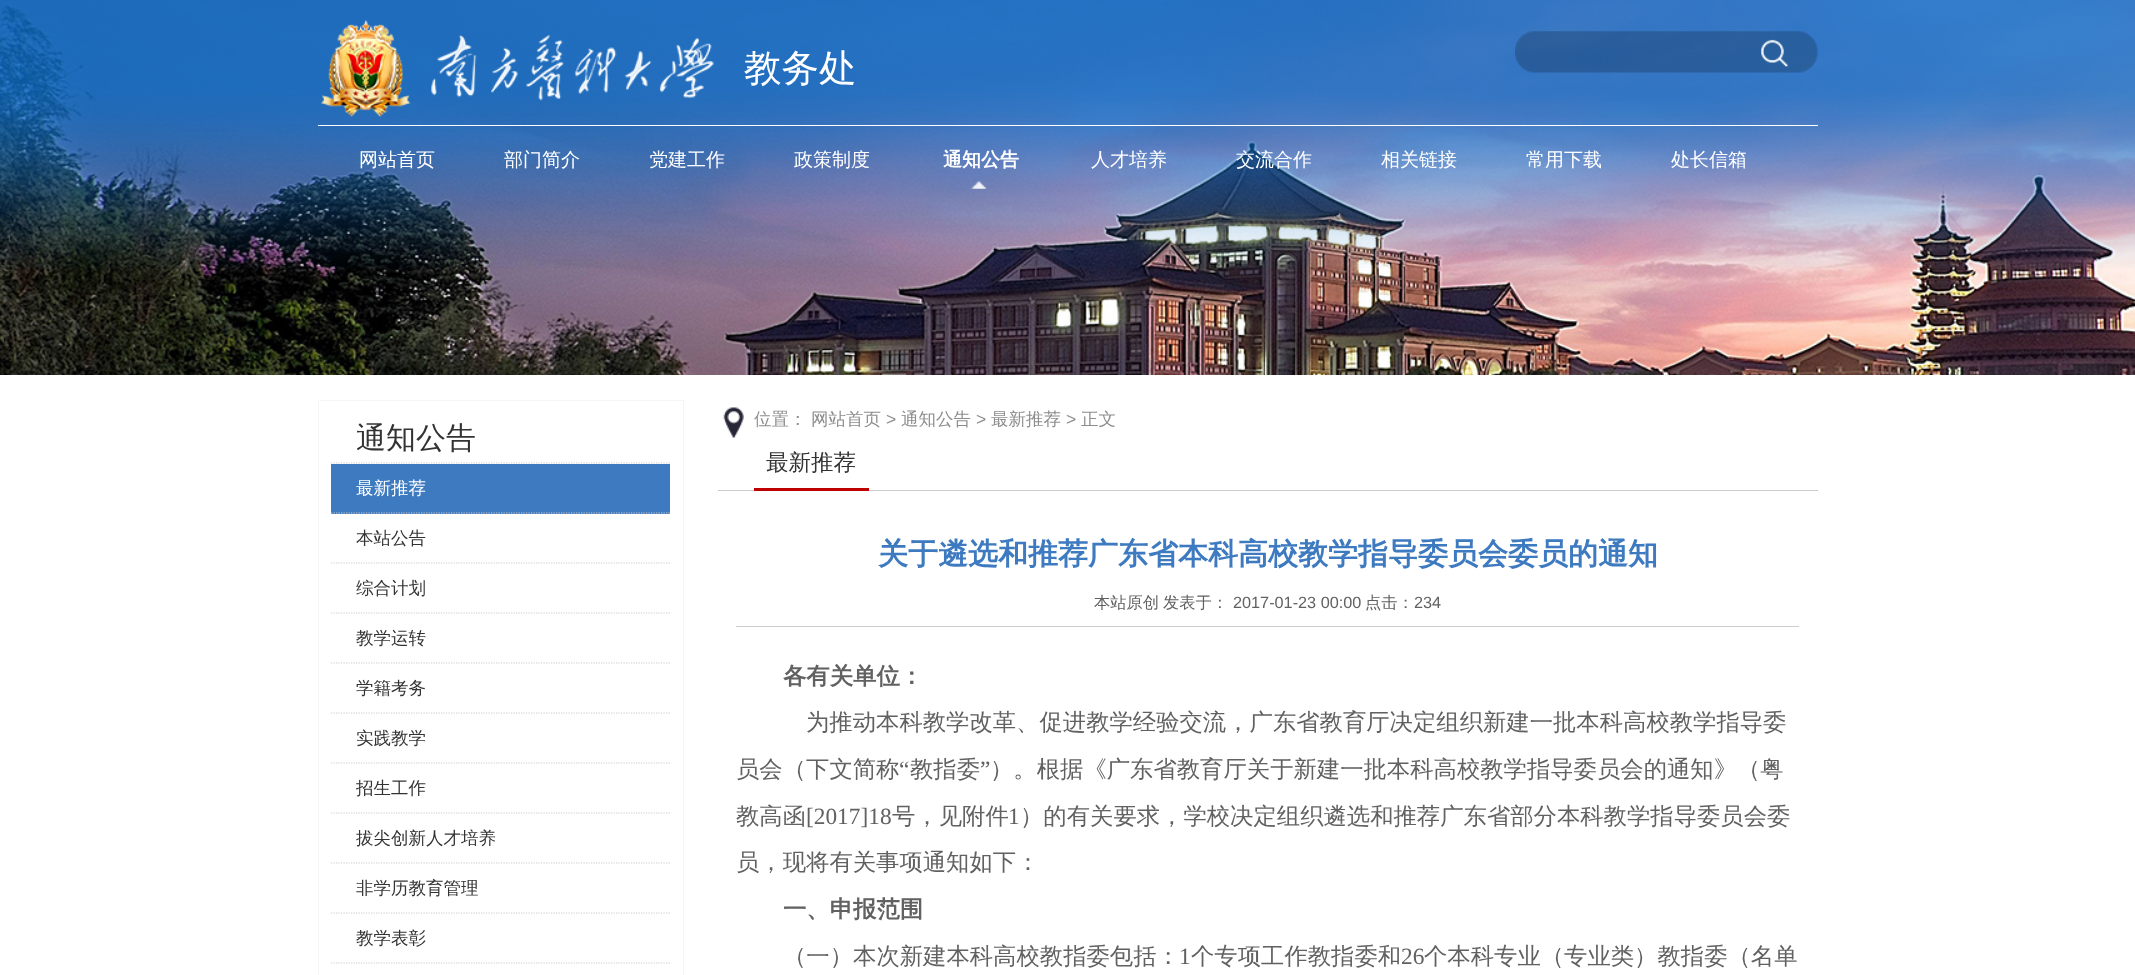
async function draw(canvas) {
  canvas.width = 2135
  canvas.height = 975
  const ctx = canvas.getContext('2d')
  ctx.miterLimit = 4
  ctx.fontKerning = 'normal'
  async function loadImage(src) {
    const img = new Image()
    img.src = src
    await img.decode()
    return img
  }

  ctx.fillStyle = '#fff'
  ctx.fillRect(0, 0, 2135, 975)
  ctx.drawImage(await loadImage('image0.png'), 0, 0, 2135, 375)
  ctx.drawImage(await loadImage('image1.png'), 0, 0, 2135, 268)
  ctx.fillRect(318, 125, 1500, 1)
  ctx.drawImage(await loadImage('image2.png'), 321, 20, 393, 97)
  ctx.font = '500 37.5px WenQuanYi Zen Hei'
  ctx.fillText('教务处', 744, 81)
  ctx.drawImage(await loadImage('image3.png'), 1515, 31, 303, 42)
  ctx.drawImage(await loadImage('image4.png'), 1761, 39, 27, 28)
  ctx.font = '500 19px WenQuanYi Zen Hei'
  ctx.fillText('网站首页', 359, 166)
  ctx.fillText('部门简介', 504, 166)
  ctx.fillText('党建工作', 649, 166)
  ctx.fillText('政策制度', 794, 166)
  ctx.drawImage(await loadImage('image5.png'), 971, 181, 16, 8)
  ctx.font = 'bold 19px WenQuanYi Zen Hei'
  ctx.fillText('通知公告', 943, 166)
  ctx.font = '500 19px WenQuanYi Zen Hei'
  ctx.fillText('人才培养', 1091, 166)
  ctx.fillText('交流合作', 1236, 166)
  ctx.fillText('相关链接', 1381, 166)
  ctx.fillText('常用下载', 1526, 166)
  ctx.fillText('处长信箱', 1671, 166)
  ctx.strokeStyle = '#f5f5f5'
  ctx.strokeRect(318.5, 400.5, 365, 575)
  ctx.beginPath()
  ctx.moveTo(331, 463)
  ctx.lineTo(670, 463)
  ctx.strokeStyle = '#ccc'
  ctx.lineWidth = 1.2
  ctx.setLineDash([1.25, 1.25])
  ctx.stroke()
  ctx.font = '500 30px WenQuanYi Zen Hei'
  ctx.fillStyle = '#333'
  ctx.fillText('通知公告', 356, 448)
  ctx.fillStyle = '#3e7ac0'
  ctx.fillRect(331, 464, 339, 50)
  ctx.beginPath()
  ctx.moveTo(331, 513)
  ctx.lineTo(670, 513)
  ctx.stroke()
  ctx.font = '500 17.5px WenQuanYi Zen Hei'
  ctx.fillStyle = '#fff'
  ctx.fillText('最新推荐', 356, 494)
  ctx.beginPath()
  ctx.moveTo(331, 563)
  ctx.lineTo(670, 563)
  ctx.stroke()
  ctx.fillStyle = '#333'
  ctx.fillText('本站公告', 356, 544)
  ctx.beginPath()
  ctx.moveTo(331, 613)
  ctx.lineTo(670, 613)
  ctx.stroke()
  ctx.fillText('综合计划', 356, 594)
  ctx.beginPath()
  ctx.moveTo(331, 663)
  ctx.lineTo(670, 663)
  ctx.stroke()
  ctx.fillText('教学运转', 356, 644)
  ctx.beginPath()
  ctx.moveTo(331, 713)
  ctx.lineTo(670, 713)
  ctx.stroke()
  ctx.fillText('学籍考务', 356, 694)
  ctx.beginPath()
  ctx.moveTo(331, 763)
  ctx.lineTo(670, 763)
  ctx.stroke()
  ctx.fillText('实践教学', 356, 744)
  ctx.beginPath()
  ctx.moveTo(331, 813)
  ctx.lineTo(670, 813)
  ctx.stroke()
  ctx.fillText('招生工作', 356, 794)
  ctx.beginPath()
  ctx.moveTo(331, 863)
  ctx.lineTo(670, 863)
  ctx.stroke()
  ctx.fillText('拔尖创新人才培养', 356, 844)
  ctx.beginPath()
  ctx.moveTo(331, 913)
  ctx.lineTo(670, 913)
  ctx.stroke()
  ctx.fillText('非学历教育管理', 356, 894)
  ctx.beginPath()
  ctx.moveTo(331, 963)
  ctx.lineTo(670, 963)
  ctx.stroke()
  ctx.fillText('教学表彰', 356, 944)
  ctx.drawImage(await loadImage('image6.png'), 723, 407, 21, 31)
  ctx.fillStyle = '#8d8d8d'
  ctx.fillText('位置：', 754, 425)
  ctx.fillText('网站首页', 811, 425)
  ctx.font = '17.5px Liberation Sans'
  ctx.fillText('>', 886, 425)
  ctx.font = '500 17.5px WenQuanYi Zen Hei'
  ctx.fillText('通知公告', 901, 425)
  ctx.font = '17.5px Liberation Sans'
  ctx.fillText('>', 976, 425)
  ctx.font = '500 17.5px WenQuanYi Zen Hei'
  ctx.fillText('最新推荐', 991, 425)
  ctx.font = '17.5px Liberation Sans'
  ctx.fillText('>', 1066, 425)
  ctx.font = '500 17.5px WenQuanYi Zen Hei'
  ctx.fillText('正文', 1081, 425)
  ctx.fillStyle = '#ccc'
  ctx.fillRect(718, 490, 1100, 1)
  ctx.fillStyle = '#be0000'
  ctx.fillRect(754, 488, 115, 3)
  ctx.font = '500 22.5px WenQuanYi Zen Hei'
  ctx.fillStyle = '#333'
  ctx.fillText('最新推荐', 766, 470)
  ctx.font = 'bold 30px WenQuanYi Zen Hei'
  ctx.fillStyle = '#3e7ac0'
  ctx.fillText('关于遴选和推荐广东省本科高校教学指导委员会委员的通知', 878, 564)
  ctx.fillStyle = '#ccc'
  ctx.fillRect(736, 626, 1063, 1)
  ctx.font = '500 16.25px WenQuanYi Zen Hei'
  ctx.fillStyle = '#616161'
  ctx.fillText('本站原创', 1094, 608)
  ctx.fillText('发表于：', 1163, 608)
  ctx.font = '16.25px Liberation Sans'
  ctx.fillText('2017-01-23 00:00', 1233, 608)
  ctx.font = '500 16.25px WenQuanYi Zen Hei'
  ctx.fillText('点击：', 1365, 608)
  ctx.font = '16.25px Liberation Sans'
  ctx.fillText('234', 1414, 608)
  ctx.font = 'bold 23.35px WenQuanYi Zen Hei'
  ctx.fillText('各有关单位：', 783, 684)
  ctx.font = '500 23.35px WenQuanYi Zen Hei'
  ctx.fillText('为推动本科教学改革、促进教学经验交流，广东省教育厅决定组织新建一批本科高校教学指导委', 806, 730)
  ctx.fillText('员会（下文简称', 736, 777)
  ctx.font = '23.35px Liberation Serif'
  ctx.fillText('“', 899, 777)
  ctx.font = '500 23.35px WenQuanYi Zen Hei'
  ctx.fillText('教指委', 910, 777)
  ctx.font = '23.35px Liberation Serif'
  ctx.fillText('”', 980, 777)
  ctx.font = '500 23.35px WenQuanYi Zen Hei'
  ctx.fillText('）。根据《广东省教育厅关于新建一批本科高校教学指导委员会的通知》（粤', 990, 777)
  ctx.fillText('教高函', 736, 824)
  ctx.font = '23.35px Liberation Serif'
  ctx.fillText('[2017]18', 806, 824)
  ctx.font = '500 23.35px WenQuanYi Zen Hei'
  ctx.fillText('号，见附件', 892, 824)
  ctx.font = '23.35px Liberation Serif'
  ctx.fillText('1', 1008, 824)
  ctx.font = '500 23.35px WenQuanYi Zen Hei'
  ctx.fillText('）的有关要求，学校决定组织遴选和推荐广东省部分本科教学指导委员会委', 1020, 824)
  ctx.fillText('员，现将有关事项通知如下：', 736, 870)
  ctx.font = 'bold 23.35px WenQuanYi Zen Hei'
  ctx.fillText('一、申报范围', 783, 917)
  ctx.font = '500 23.35px WenQuanYi Zen Hei'
  ctx.fillText('（一）本次新建本科高校教指委包括：', 783, 964)
  ctx.font = '23.35px Liberation Serif'
  ctx.fillText('1', 1179, 964)
  ctx.font = '500 23.35px WenQuanYi Zen Hei'
  ctx.fillText('个专项工作教指委和', 1191, 964)
  ctx.font = '23.35px Liberation Serif'
  ctx.fillText('26', 1401, 964)
  ctx.font = '500 23.35px WenQuanYi Zen Hei'
  ctx.fillText('个本科专业（专业类）教指委（名单', 1424, 964)
}

draw(document.querySelector('canvas'))
